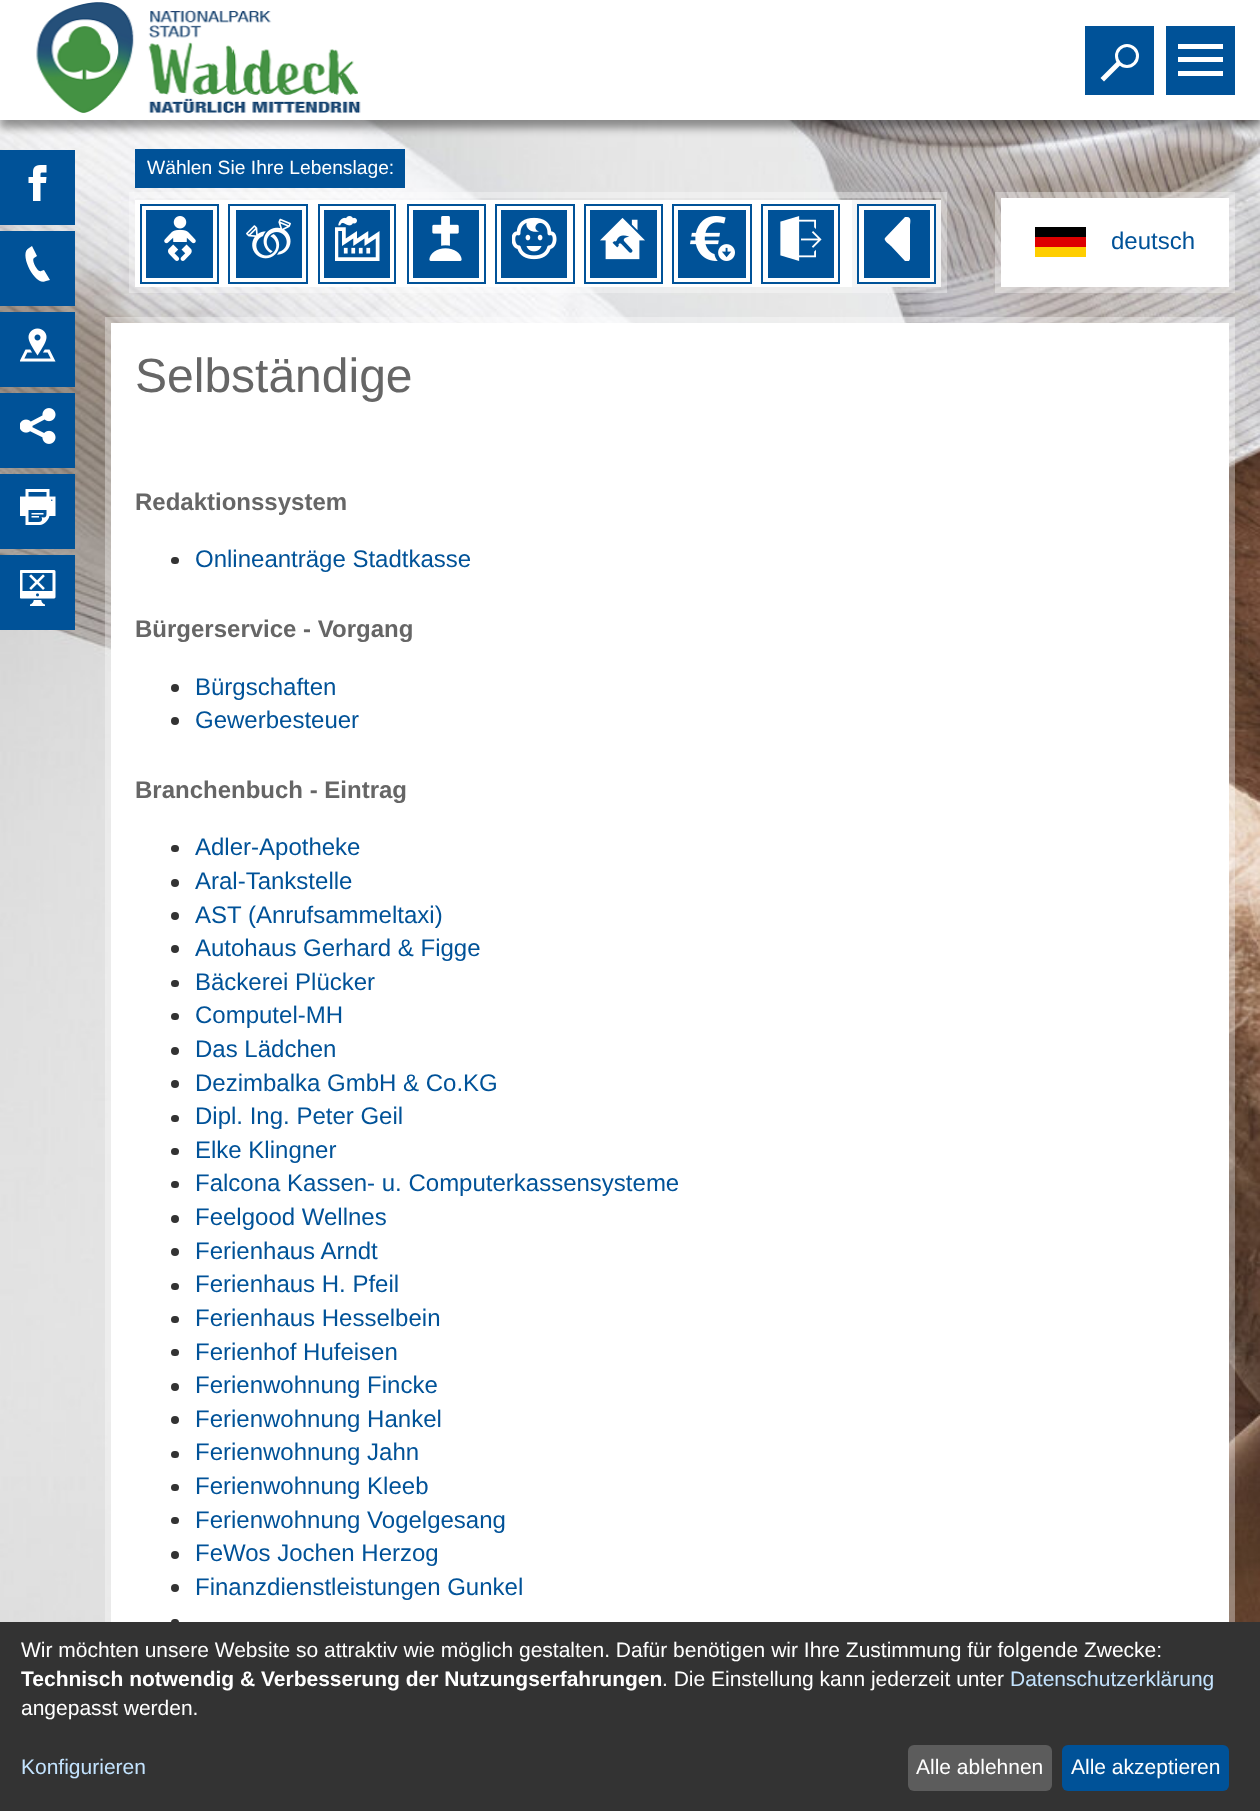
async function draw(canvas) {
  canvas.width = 1260
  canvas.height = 1811
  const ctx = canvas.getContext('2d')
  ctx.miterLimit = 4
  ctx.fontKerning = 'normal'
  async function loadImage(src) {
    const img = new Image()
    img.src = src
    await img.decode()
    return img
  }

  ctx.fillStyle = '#fff'
  ctx.fillRect(0, 0, 1260, 1811)
  ctx.drawImage(await loadImage('image0.png'), 0, 120, 1260, 1502)
  ctx.fillStyle = '#00000066'
  ctx.filter = 'blur(4px)'
  ctx.beginPath()
  ctx.rect(0, 8, 1260, 120)
  ctx.fill()
  ctx.filter = 'none'
  ctx.fillStyle = '#fff'
  ctx.fillRect(0, 0, 1260, 120)
  ctx.drawImage(await loadImage('image1.png'), 36, 2, 325, 111)
  ctx.fillStyle = '#005298'
  ctx.fillRect(1085, 26, 69, 69)
  ctx.fillStyle = '#fff'
  ctx.beginPath()
  ctx.moveTo(1100.5, 78)
  ctx.lineTo(1132.5, 46)
  ctx.lineTo(1136, 49.5)
  ctx.lineTo(1104, 81.5)
  ctx.closePath()
  ctx.fill()
  ctx.fillStyle = '#005298'
  ctx.beginPath()
  ctx.arc(1127, 56, 10.5, 0, 2 * Math.PI)
  ctx.fill()
  ctx.strokeStyle = '#fff'
  ctx.lineWidth = 3
  ctx.stroke()
  ctx.fillRect(1166, 26, 69, 69)
  ctx.fillStyle = '#fff'
  ctx.fillRect(1178, 57, 45, 5)
  ctx.fillRect(1178, 44, 45, 5)
  ctx.fillRect(1178, 71, 45, 5)
  ctx.strokeStyle = '#ffffff59'
  ctx.lineWidth = 6
  ctx.strokeRect(132, 195, 812, 95)
  ctx.fillStyle = '#005298'
  ctx.fillRect(135, 149, 270, 39)
  ctx.font = '19.25px Liberation Sans'
  ctx.fillStyle = '#fff'
  ctx.fillText('Wählen Sie Ihre Lebenslage:', 147, 174)
  ctx.fillRect(135, 200, 717, 87)
  ctx.strokeStyle = '#005298'
  ctx.lineWidth = 2
  ctx.strokeRect(141, 205, 77, 78)
  ctx.fillStyle = '#005298'
  ctx.fillRect(146, 210, 67, 68)
  ctx.drawImage(await loadImage('image2.png'), 164, 216, 32, 45)
  ctx.strokeRect(229, 205, 78, 78)
  ctx.fillRect(236, 210, 66, 68)
  ctx.drawImage(await loadImage('image3.png'), 246, 218, 45, 41)
  ctx.strokeRect(319, 205, 76, 78)
  ctx.fillRect(324, 210, 66, 68)
  ctx.drawImage(await loadImage('image4.png'), 335, 216, 45, 45)
  ctx.strokeRect(408, 205, 77, 78)
  ctx.fillRect(413, 210, 66, 68)
  ctx.drawImage(await loadImage('image5.png'), 429, 216, 33, 45)
  ctx.strokeRect(496, 205, 78, 78)
  ctx.fillRect(501, 210, 66, 68)
  ctx.drawImage(await loadImage('image6.png'), 512, 217, 45, 43)
  ctx.strokeRect(585, 205, 77, 78)
  ctx.fillRect(590, 210, 67, 68)
  ctx.drawImage(await loadImage('image7.png'), 600, 218, 45, 42)
  ctx.strokeRect(673, 205, 78, 78)
  ctx.fillRect(678, 210, 68, 68)
  ctx.drawImage(await loadImage('image8.png'), 690, 216, 45, 45)
  ctx.strokeRect(762, 205, 77, 78)
  ctx.fillRect(768, 210, 66, 68)
  ctx.drawImage(await loadImage('image9.png'), 780, 216, 42, 45)
  ctx.fillStyle = '#f5f5f5'
  ctx.fillRect(852, 200, 89, 87)
  ctx.fillStyle = '#fff'
  ctx.beginPath()
  ctx.rect(858, 205, 77, 78)
  ctx.fill()
  ctx.stroke()
  ctx.fillStyle = '#005298'
  ctx.fillRect(864, 210, 66, 68)
  ctx.fillStyle = '#fff'
  ctx.beginPath()
  ctx.moveTo(909, 261)
  ctx.lineTo(908, 261)
  ctx.lineTo(905, 261)
  ctx.lineTo(891, 246)
  ctx.bezierCurveTo(890, 245, 883, 240, 885, 238)
  ctx.lineTo(905, 217)
  ctx.lineTo(907, 217)
  ctx.bezierCurveTo(912, 217, 910, 223, 910, 226)
  ctx.lineTo(910, 259)
  ctx.closePath()
  ctx.fill()
  ctx.strokeStyle = '#ffffff59'
  ctx.lineWidth = 6
  ctx.strokeRect(998, 195, 234, 95)
  ctx.fillRect(1001, 198, 228, 89)
  ctx.fillStyle = '#000'
  ctx.fillRect(1035, 227, 51, 10)
  ctx.fillStyle = '#d00'
  ctx.fillRect(1035, 237, 51, 10)
  ctx.fillStyle = '#ffce00'
  ctx.fillRect(1035, 247, 51, 10)
  ctx.font = '24px Liberation Sans'
  ctx.fillStyle = '#005298'
  ctx.fillText('deutsch', 1111, 249)
  ctx.fillRect(0, 150, 75, 75)
  ctx.drawImage(await loadImage('image10.png'), 28, 165, 19, 36)
  ctx.fillRect(0, 231, 75, 75)
  ctx.fillStyle = '#fff'
  ctx.beginPath()
  ctx.moveTo(50, 280)
  ctx.lineTo(44, 270)
  ctx.lineTo(41, 271)
  ctx.bezierCurveTo(38, 273, 31, 260, 34, 258)
  ctx.lineTo(37, 256)
  ctx.lineTo(32, 246)
  ctx.lineTo(29, 248)
  ctx.bezierCurveTo(18, 253, 35, 287, 46, 281)
  ctx.closePath()
  ctx.fill()
  ctx.fillStyle = '#005298'
  ctx.fillRect(0, 312, 75, 75)
  ctx.drawImage(await loadImage('image11.png'), 20, 328, 36, 34)
  ctx.fillRect(0, 393, 75, 75)
  ctx.drawImage(await loadImage('image12.png'), 20, 408, 36, 36)
  ctx.fillRect(0, 474, 75, 75)
  ctx.drawImage(await loadImage('image13.png'), 20, 489, 36, 36)
  ctx.fillRect(0, 555, 75, 75)
  ctx.drawImage(await loadImage('image14.png'), 20, 570, 36, 36)
  ctx.strokeRect(108, 320, 1124, 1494)
  ctx.fillStyle = '#fff'
  ctx.fillRect(111, 323, 1118, 1299)
  ctx.font = '48px Liberation Sans'
  ctx.fillStyle = '#666'
  ctx.fillText('Selbständige', 135, 392)
  ctx.font = 'bold 24px Liberation Sans'
  ctx.fillText('Redaktionssystem', 135, 510)
  ctx.fillStyle = '#333'
  ctx.beginPath()
  ctx.roundRect(171, 557, 8, 7, 3.5)
  ctx.fill()
  ctx.font = '24px Liberation Sans'
  ctx.fillStyle = '#005298'
  ctx.fillText('Onlineanträge Stadtkasse', 195, 567)
  ctx.font = 'bold 24px Liberation Sans'
  ctx.fillStyle = '#666'
  ctx.fillText('Bürgerservice - Vorgang', 135, 637)
  ctx.fillStyle = '#333'
  ctx.beginPath()
  ctx.arc(175, 688, 4, 0, 2 * Math.PI)
  ctx.fill()
  ctx.font = '24px Liberation Sans'
  ctx.fillStyle = '#005298'
  ctx.fillText('Bürgschaften', 195, 695)
  ctx.fillStyle = '#333'
  ctx.beginPath()
  ctx.arc(175, 721, 4, 0, 2 * Math.PI)
  ctx.fill()
  ctx.fillStyle = '#005298'
  ctx.fillText('Gewerbesteuer', 195, 728)
  ctx.font = 'bold 24px Liberation Sans'
  ctx.fillStyle = '#666'
  ctx.fillText('Branchenbuch - Eintrag', 135, 798)
  ctx.fillStyle = '#333'
  ctx.beginPath()
  ctx.roundRect(171, 845, 8, 7, 3.5)
  ctx.fill()
  ctx.font = '24px Liberation Sans'
  ctx.fillStyle = '#005298'
  ctx.fillText('Adler-Apotheke', 195, 855)
  ctx.fillStyle = '#333'
  ctx.beginPath()
  ctx.arc(175, 883, 4, 0, 2 * Math.PI)
  ctx.fill()
  ctx.fillStyle = '#005298'
  ctx.fillText('Aral-Tankstelle', 195, 889)
  ctx.fillStyle = '#333'
  ctx.beginPath()
  ctx.arc(175, 916, 4, 0, 2 * Math.PI)
  ctx.fill()
  ctx.fillStyle = '#005298'
  ctx.fillText('AST (Anrufsammeltaxi)', 195, 923)
  ctx.fillStyle = '#333'
  ctx.beginPath()
  ctx.arc(175, 949, 4, 0, 2 * Math.PI)
  ctx.fill()
  ctx.fillStyle = '#005298'
  ctx.fillText('Autohaus Gerhard & Figge', 195, 956)
  ctx.fillStyle = '#333'
  ctx.beginPath()
  ctx.roundRect(171, 980, 8, 7, 3.5)
  ctx.fill()
  ctx.fillStyle = '#005298'
  ctx.fillText('Bäckerei Plücker', 195, 990)
  ctx.fillStyle = '#333'
  ctx.beginPath()
  ctx.roundRect(171, 1013, 8, 7, 3.5)
  ctx.fill()
  ctx.fillStyle = '#005298'
  ctx.fillText('Computel-MH', 195, 1023)
  ctx.fillStyle = '#333'
  ctx.beginPath()
  ctx.arc(175, 1051, 4, 0, 2 * Math.PI)
  ctx.fill()
  ctx.fillStyle = '#005298'
  ctx.fillText('Das Lädchen', 195, 1057)
  ctx.fillStyle = '#333'
  ctx.beginPath()
  ctx.arc(175, 1084, 4, 0, 2 * Math.PI)
  ctx.fill()
  ctx.fillStyle = '#005298'
  ctx.fillText('Dezimbalka GmbH & Co.KG', 195, 1091)
  ctx.fillStyle = '#333'
  ctx.beginPath()
  ctx.roundRect(171, 1115, 8, 7, 3.5)
  ctx.fill()
  ctx.fillStyle = '#005298'
  ctx.fillText('Dipl. Ing. Peter Geil', 195, 1124)
  ctx.fillStyle = '#333'
  ctx.beginPath()
  ctx.roundRect(171, 1148, 8, 7, 3.5)
  ctx.fill()
  ctx.fillStyle = '#005298'
  ctx.fillText('Elke Klingner', 195, 1158)
  ctx.fillStyle = '#333'
  ctx.beginPath()
  ctx.roundRect(171, 1181, 8, 7, 3.5)
  ctx.fill()
  ctx.fillStyle = '#005298'
  ctx.fillText('Falcona Kassen- u. Computerkassensysteme', 195, 1191)
  ctx.fillStyle = '#333'
  ctx.beginPath()
  ctx.arc(175, 1219, 4, 0, 2 * Math.PI)
  ctx.fill()
  ctx.fillStyle = '#005298'
  ctx.fillText('Feelgood Wellnes', 195, 1225)
  ctx.fillStyle = '#333'
  ctx.beginPath()
  ctx.arc(175, 1252, 4, 0, 2 * Math.PI)
  ctx.fill()
  ctx.fillStyle = '#005298'
  ctx.fillText('Ferienhaus Arndt', 195, 1259)
  ctx.fillStyle = '#333'
  ctx.beginPath()
  ctx.roundRect(171, 1283, 8, 7, 3.5)
  ctx.fill()
  ctx.fillStyle = '#005298'
  ctx.fillText('Ferienhaus H. Pfeil', 195, 1292)
  ctx.fillStyle = '#333'
  ctx.beginPath()
  ctx.roundRect(171, 1316, 8, 7, 3.5)
  ctx.fill()
  ctx.fillStyle = '#005298'
  ctx.fillText('Ferienhaus Hesselbein', 195, 1326)
  ctx.fillStyle = '#333'
  ctx.beginPath()
  ctx.roundRect(171, 1349, 8, 7, 3.5)
  ctx.fill()
  ctx.fillStyle = '#005298'
  ctx.fillText('Ferienhof Hufeisen', 195, 1360)
  ctx.fillStyle = '#333'
  ctx.beginPath()
  ctx.arc(175, 1387, 4, 0, 2 * Math.PI)
  ctx.fill()
  ctx.fillStyle = '#005298'
  ctx.fillText('Ferienwohnung Fincke', 195, 1393)
  ctx.fillStyle = '#333'
  ctx.beginPath()
  ctx.arc(175, 1420, 4, 0, 2 * Math.PI)
  ctx.fill()
  ctx.fillStyle = '#005298'
  ctx.fillText('Ferienwohnung Hankel', 195, 1427)
  ctx.fillStyle = '#333'
  ctx.beginPath()
  ctx.roundRect(171, 1451, 8, 7, 3.5)
  ctx.fill()
  ctx.fillStyle = '#005298'
  ctx.fillText('Ferienwohnung Jahn', 195, 1460)
  ctx.fillStyle = '#333'
  ctx.beginPath()
  ctx.roundRect(171, 1484, 8, 7, 3.5)
  ctx.fill()
  ctx.fillStyle = '#005298'
  ctx.fillText('Ferienwohnung Kleeb', 195, 1494)
  ctx.fillStyle = '#333'
  ctx.beginPath()
  ctx.roundRect(171, 1517, 8, 7, 3.5)
  ctx.fill()
  ctx.fillStyle = '#005298'
  ctx.fillText('Ferienwohnung Vogelgesang', 195, 1528)
  ctx.fillStyle = '#333'
  ctx.beginPath()
  ctx.arc(175, 1555, 4, 0, 2 * Math.PI)
  ctx.fill()
  ctx.fillStyle = '#005298'
  ctx.fillText('FeWos Jochen Herzog', 195, 1561)
  ctx.fillStyle = '#333'
  ctx.beginPath()
  ctx.arc(175, 1588, 4, 0, 2 * Math.PI)
  ctx.fill()
  ctx.fillStyle = '#005298'
  ctx.fillText('Finanzdienstleistungen Gunkel', 195, 1595)
  ctx.fillStyle = '#333'
  ctx.beginPath()
  ctx.roundRect(171, 1619, 8, 7, 3.5)
  ctx.fill()
  ctx.fillRect(0, 1622, 1260, 189)
  ctx.font = '21px Liberation Sans'
  ctx.fillStyle = '#fff'
  ctx.fillText('Wir möchten unsere Website so attraktiv wie möglich gestalten. Dafür benötigen wir Ihre Zustimmung für folgende Zwecke:', 21, 1657)
  ctx.font = 'bold 21px Liberation Sans'
  ctx.fillText('Technisch notwendig & Verbesserung der Nutzungserfahrungen', 21, 1686)
  ctx.font = '21px Liberation Sans'
  ctx.fillText('. Die Einstellung kann jederzeit unter', 662, 1686)
  ctx.fillStyle = '#c3e3fe'
  ctx.fillText('Datenschutzerklärung', 1010, 1686)
  ctx.fillStyle = '#fff'
  ctx.fillText('angepasst werden.', 21, 1715)
  ctx.fillStyle = '#c3e3fe'
  ctx.fillText('Konfigurieren', 21, 1774)
  ctx.fillStyle = '#5c5c5c'
  ctx.beginPath()
  ctx.roundRect(908, 1745, 144, 46, 6)
  ctx.fill()
  ctx.fillStyle = '#fff'
  ctx.fillText('Alle ablehnen', 916, 1774)
  ctx.fillStyle = '#005298'
  ctx.beginPath()
  ctx.roundRect(1062, 1745, 167, 46, 6)
  ctx.fill()
  ctx.fillStyle = '#fff'
  ctx.fillText('Alle akzeptieren', 1071, 1774)
}

draw(document.querySelector('canvas'))
